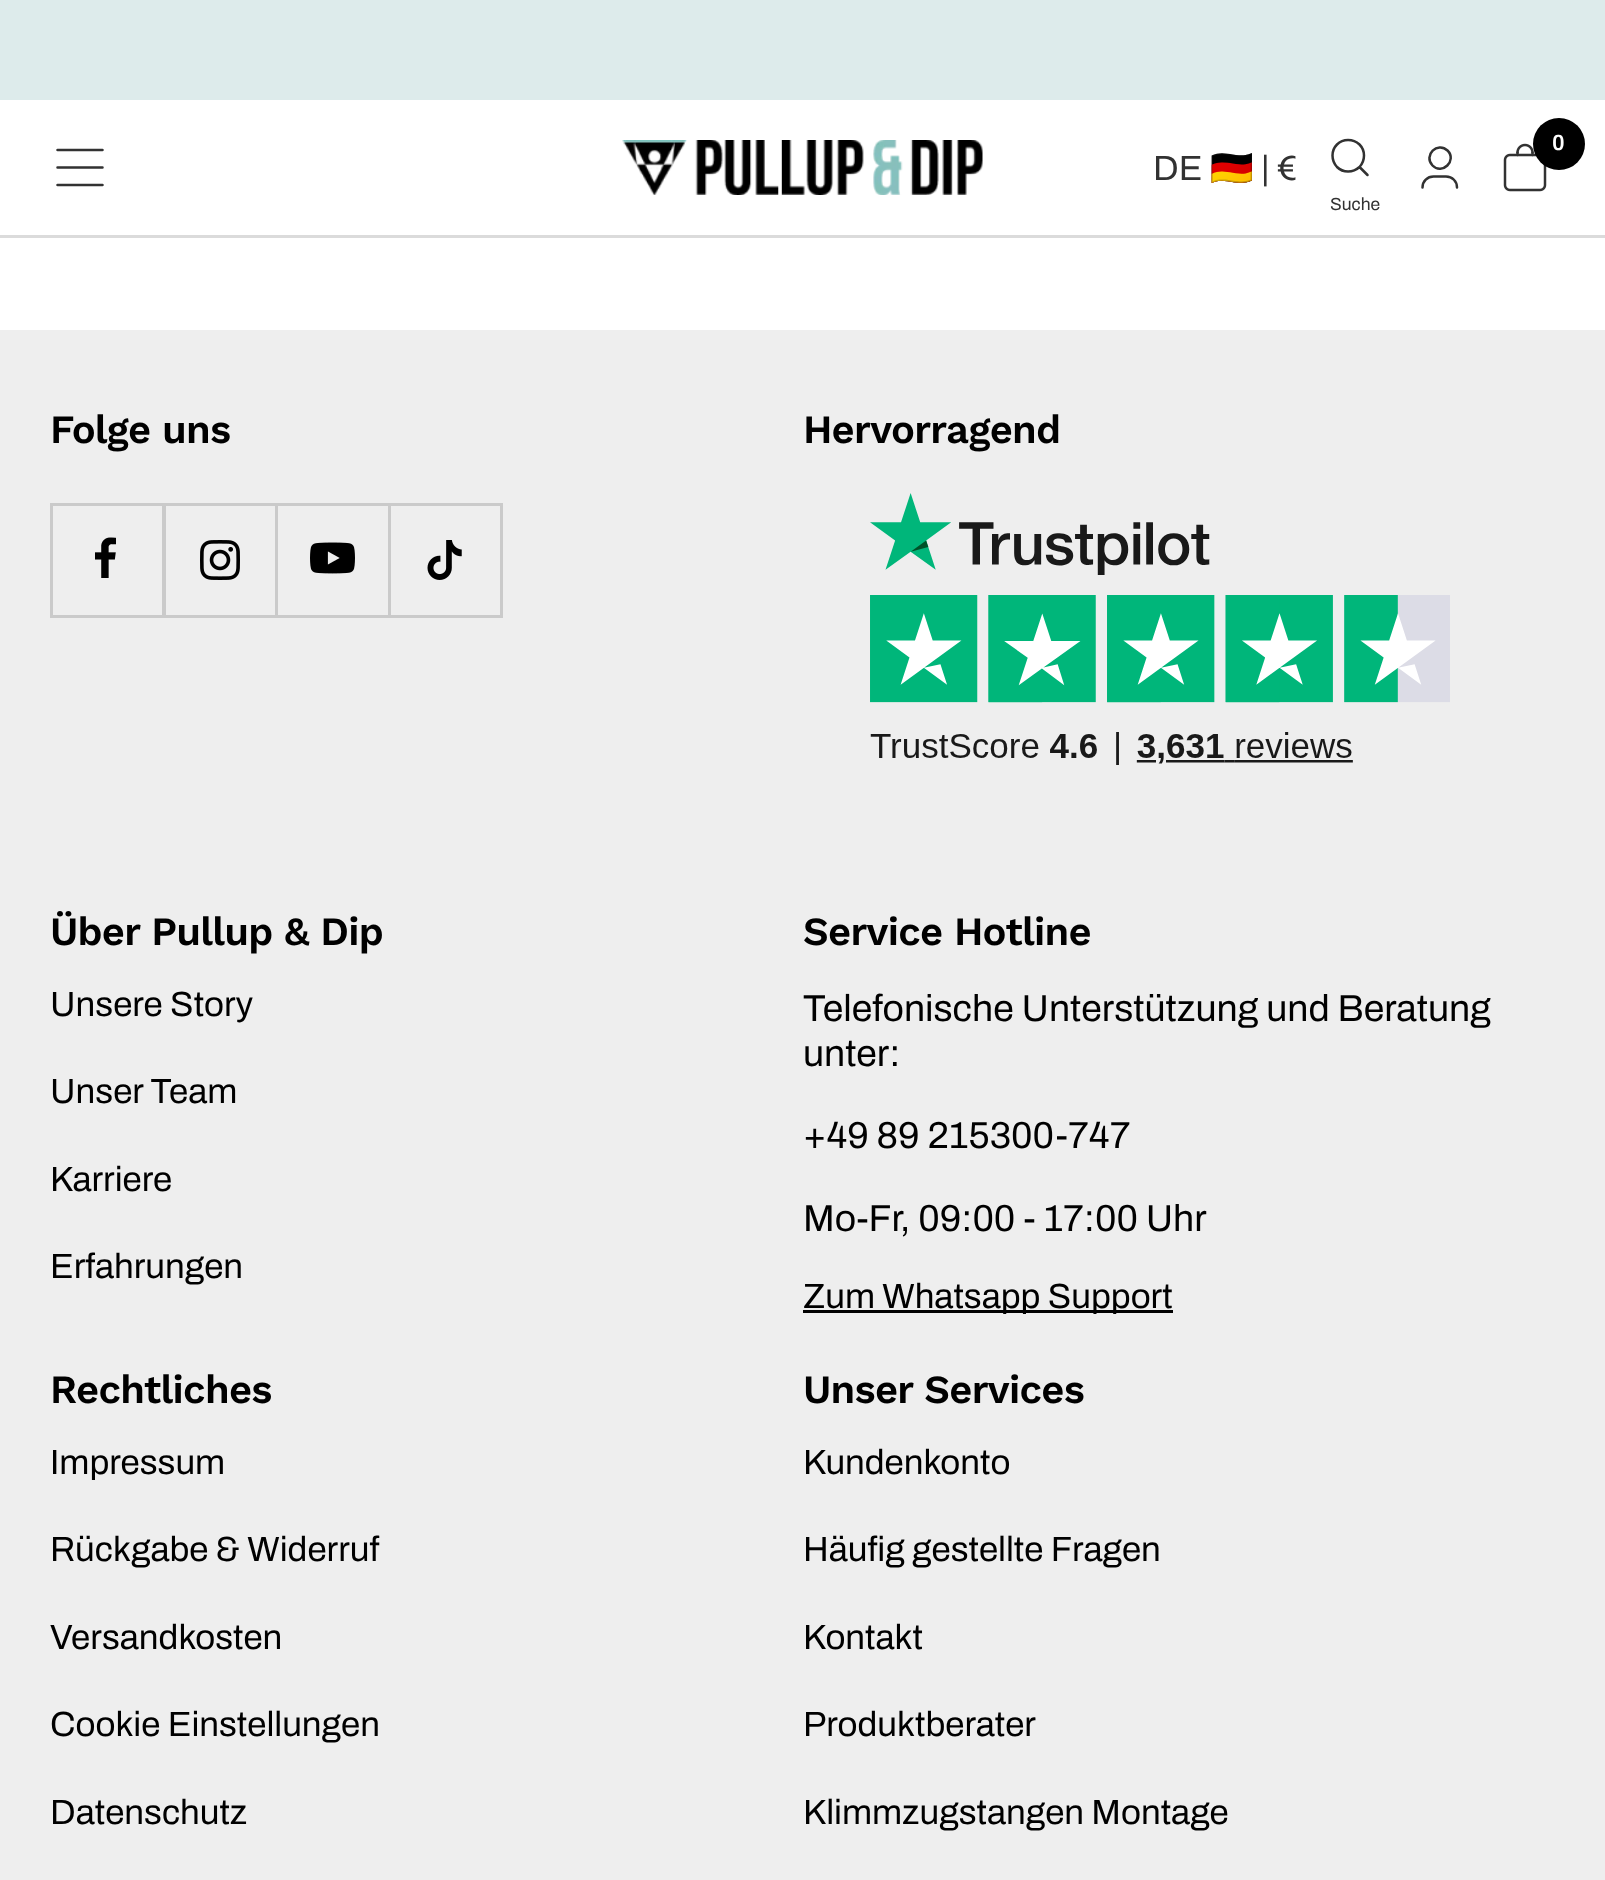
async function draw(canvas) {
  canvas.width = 1605
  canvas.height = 1880
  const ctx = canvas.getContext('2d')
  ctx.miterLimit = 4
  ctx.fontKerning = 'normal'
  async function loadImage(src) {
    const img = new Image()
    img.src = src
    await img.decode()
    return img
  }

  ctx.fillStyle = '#fff'
  ctx.fillRect(0, 0, 1605, 1880)
  ctx.fillStyle = '#ddebeb'
  ctx.fillRect(0, 0, 1605, 100)
  ctx.fillStyle = '#dbdbdb'
  ctx.fillRect(0, 235, 1605, 3)
  ctx.beginPath()
  ctx.moveTo(57.5, 150)
  ctx.lineTo(102.5, 150)
  ctx.moveTo(57.5, 167.5)
  ctx.lineTo(102.5, 167.5)
  ctx.moveTo(57.5, 185)
  ctx.lineTo(102.5, 185)
  ctx.strokeStyle = '#323232'
  ctx.lineWidth = 2.5
  ctx.lineCap = 'round'
  ctx.lineJoin = 'round'
  ctx.stroke()
  ctx.drawImage(await loadImage('image0.png'), 622, 140, 361, 55)
  ctx.font = '35px Archivo'
  ctx.fillStyle = '#323232'
  ctx.fillText('DE', 1153, 180)
  ctx.font = '35px Noto Color Emoji'
  ctx.fillText('🇩🇪', 1210, 180)
  ctx.font = '35px Archivo'
  ctx.fillText('| €', 1261, 180)
  ctx.drawImage(await loadImage('image1.png'), 1503, 143, 44, 49)
  ctx.fillStyle = '#000'
  ctx.beginPath()
  ctx.arc(1559, 144, 26, 0, 2 * Math.PI)
  ctx.fill()
  ctx.font = '600 22px Archivo'
  ctx.fillStyle = '#fff'
  ctx.fillText('0', 1552, 150)
  ctx.beginPath()
  ctx.moveTo(1422.5, 187.5)
  ctx.bezierCurveTo(1422.5, 181, 1427.5, 176.5, 1433.5, 176.5)
  ctx.lineTo(1446, 176.5)
  ctx.bezierCurveTo(1452.5, 176.5, 1457, 181.5, 1457, 187.5)
  ctx.moveTo(1447.5, 150.5)
  ctx.bezierCurveTo(1457.5, 160.5, 1442, 175.5, 1432.5, 165.5)
  ctx.bezierCurveTo(1423, 155.5, 1437.5, 141, 1447.5, 150.5)
  ctx.closePath()
  ctx.stroke()
  ctx.beginPath()
  ctx.moveTo(1359.5, 144.5)
  ctx.bezierCurveTo(1365.5, 150.5, 1365.5, 160.5, 1359.5, 167)
  ctx.bezierCurveTo(1353, 173, 1343, 173, 1337, 167)
  ctx.bezierCurveTo(1331, 160.5, 1331, 150.5, 1337, 144.5)
  ctx.bezierCurveTo(1343, 138.5, 1353, 138.5, 1359.5, 144.5)
  ctx.closePath()
  ctx.moveTo(1367.5, 175)
  ctx.lineTo(1359.5, 167)
  ctx.stroke()
  ctx.font = '17.5px Archivo'
  ctx.fillStyle = '#323232'
  ctx.fillText('Suche', 1330, 210)
  ctx.fillStyle = '#eee'
  ctx.fillRect(0, 330, 1605, 1550)
  ctx.letterSpacing = '-0.75px'
  ctx.font = '600 40px Work Sans'
  ctx.fillStyle = '#000'
  ctx.fillText('Folge uns', 50, 443)
  ctx.fillStyle = '#cacaca'
  ctx.beginPath()
  ctx.moveTo(53, 615)
  ctx.lineTo(53, 618)
  ctx.lineTo(165, 618)
  ctx.lineTo(165, 505)
  ctx.lineTo(162, 505)
  ctx.lineTo(162, 615)
  ctx.closePath()
  ctx.fill()
  ctx.beginPath()
  ctx.moveTo(50, 615)
  ctx.lineTo(50, 618)
  ctx.lineTo(163, 618)
  ctx.lineTo(163, 505)
  ctx.lineTo(162, 505)
  ctx.lineTo(162, 615)
  ctx.closePath()
  ctx.fill()
  ctx.fillRect(162, 503, 1, 2)
  ctx.fillRect(50, 503, 113, 3)
  ctx.fillRect(50, 503, 3, 112)
  ctx.drawImage(await loadImage('image2.png'), 95, 537, 21, 41)
  ctx.beginPath()
  ctx.moveTo(165, 615)
  ctx.lineTo(165, 618)
  ctx.lineTo(278, 618)
  ctx.lineTo(278, 505)
  ctx.lineTo(275, 505)
  ctx.lineTo(275, 615)
  ctx.closePath()
  ctx.fill()
  ctx.fillRect(275, 503, 3, 2)
  ctx.fillRect(163, 503, 112, 3)
  ctx.fillRect(165, 503, 1, 112)
  ctx.drawImage(await loadImage('image3.png'), 200, 540, 40, 40)
  ctx.beginPath()
  ctx.moveTo(278, 615)
  ctx.lineTo(278, 618)
  ctx.lineTo(390, 618)
  ctx.lineTo(390, 505)
  ctx.lineTo(388, 505)
  ctx.lineTo(388, 615)
  ctx.closePath()
  ctx.fill()
  ctx.fillRect(275, 503, 113, 3)
  ctx.drawImage(await loadImage('image4.png'), 310, 542, 45, 32)
  ctx.beginPath()
  ctx.moveTo(390, 615)
  ctx.lineTo(390, 618)
  ctx.lineTo(503, 618)
  ctx.lineTo(503, 505)
  ctx.lineTo(500, 505)
  ctx.lineTo(500, 615)
  ctx.closePath()
  ctx.fill()
  ctx.fillRect(500, 503, 3, 2)
  ctx.fillRect(388, 503, 112, 3)
  ctx.fillRect(390, 503, 1, 112)
  ctx.drawImage(await loadImage('image5.png'), 427, 540, 35, 40)
  ctx.fillStyle = '#000'
  ctx.fillText('Hervorragend', 803, 443)
  ctx.drawImage(await loadImage('image6.png'), 870, 493, 580, 272)
  ctx.fillText('Über Pullup & Dip', 50, 945)
  ctx.letterSpacing = '0px'
  ctx.font = '35px Archivo'
  ctx.fillText('Unsere Story', 50, 1016)
  ctx.fillText('Unser Team', 50, 1103)
  ctx.fillText('Karriere', 50, 1191)
  ctx.fillText('Erfahrungen', 50, 1278)
  ctx.letterSpacing = '-0.75px'
  ctx.font = '600 40px Work Sans'
  ctx.fillText('Service Hotline', 803, 945)
  ctx.letterSpacing = '0px'
  ctx.font = '37.5px Archivo'
  ctx.fillText('Telefonische Unterstützung und Beratung', 803, 1021)
  ctx.fillText('unter:', 803, 1066)
  ctx.fillText('+49 89 215300-747', 803, 1148)
  ctx.fillText('Mo-Fr, 09:00 - 17:00 Uhr', 803, 1231)
  ctx.fillRect(803, 1310, 370, 3)
  ctx.font = '35px Archivo'
  ctx.fillText('Zum Whatsapp Support', 803, 1308)
  ctx.letterSpacing = '-0.75px'
  ctx.font = '600 40px Work Sans'
  ctx.fillText('Rechtliches', 50, 1403)
  ctx.letterSpacing = '0px'
  ctx.font = '35px Archivo'
  ctx.fillText('Impressum', 50, 1474)
  ctx.fillText('Rückgabe & Widerruf', 50, 1561)
  ctx.fillText('Versandkosten', 50, 1649)
  ctx.fillText('Cookie Einstellungen', 50, 1736)
  ctx.fillText('Datenschutz', 50, 1824)
  ctx.letterSpacing = '-0.75px'
  ctx.font = '600 40px Work Sans'
  ctx.fillText('Unser Services', 803, 1403)
  ctx.letterSpacing = '0px'
  ctx.font = '35px Archivo'
  ctx.fillText('Kundenkonto', 803, 1474)
  ctx.fillText('Häufig gestellte Fragen', 803, 1561)
  ctx.fillText('Kontakt', 803, 1649)
  ctx.fillText('Produktberater', 803, 1736)
  ctx.fillText('Klimmzugstangen Montage', 803, 1824)
}

draw(document.querySelector('canvas'))
